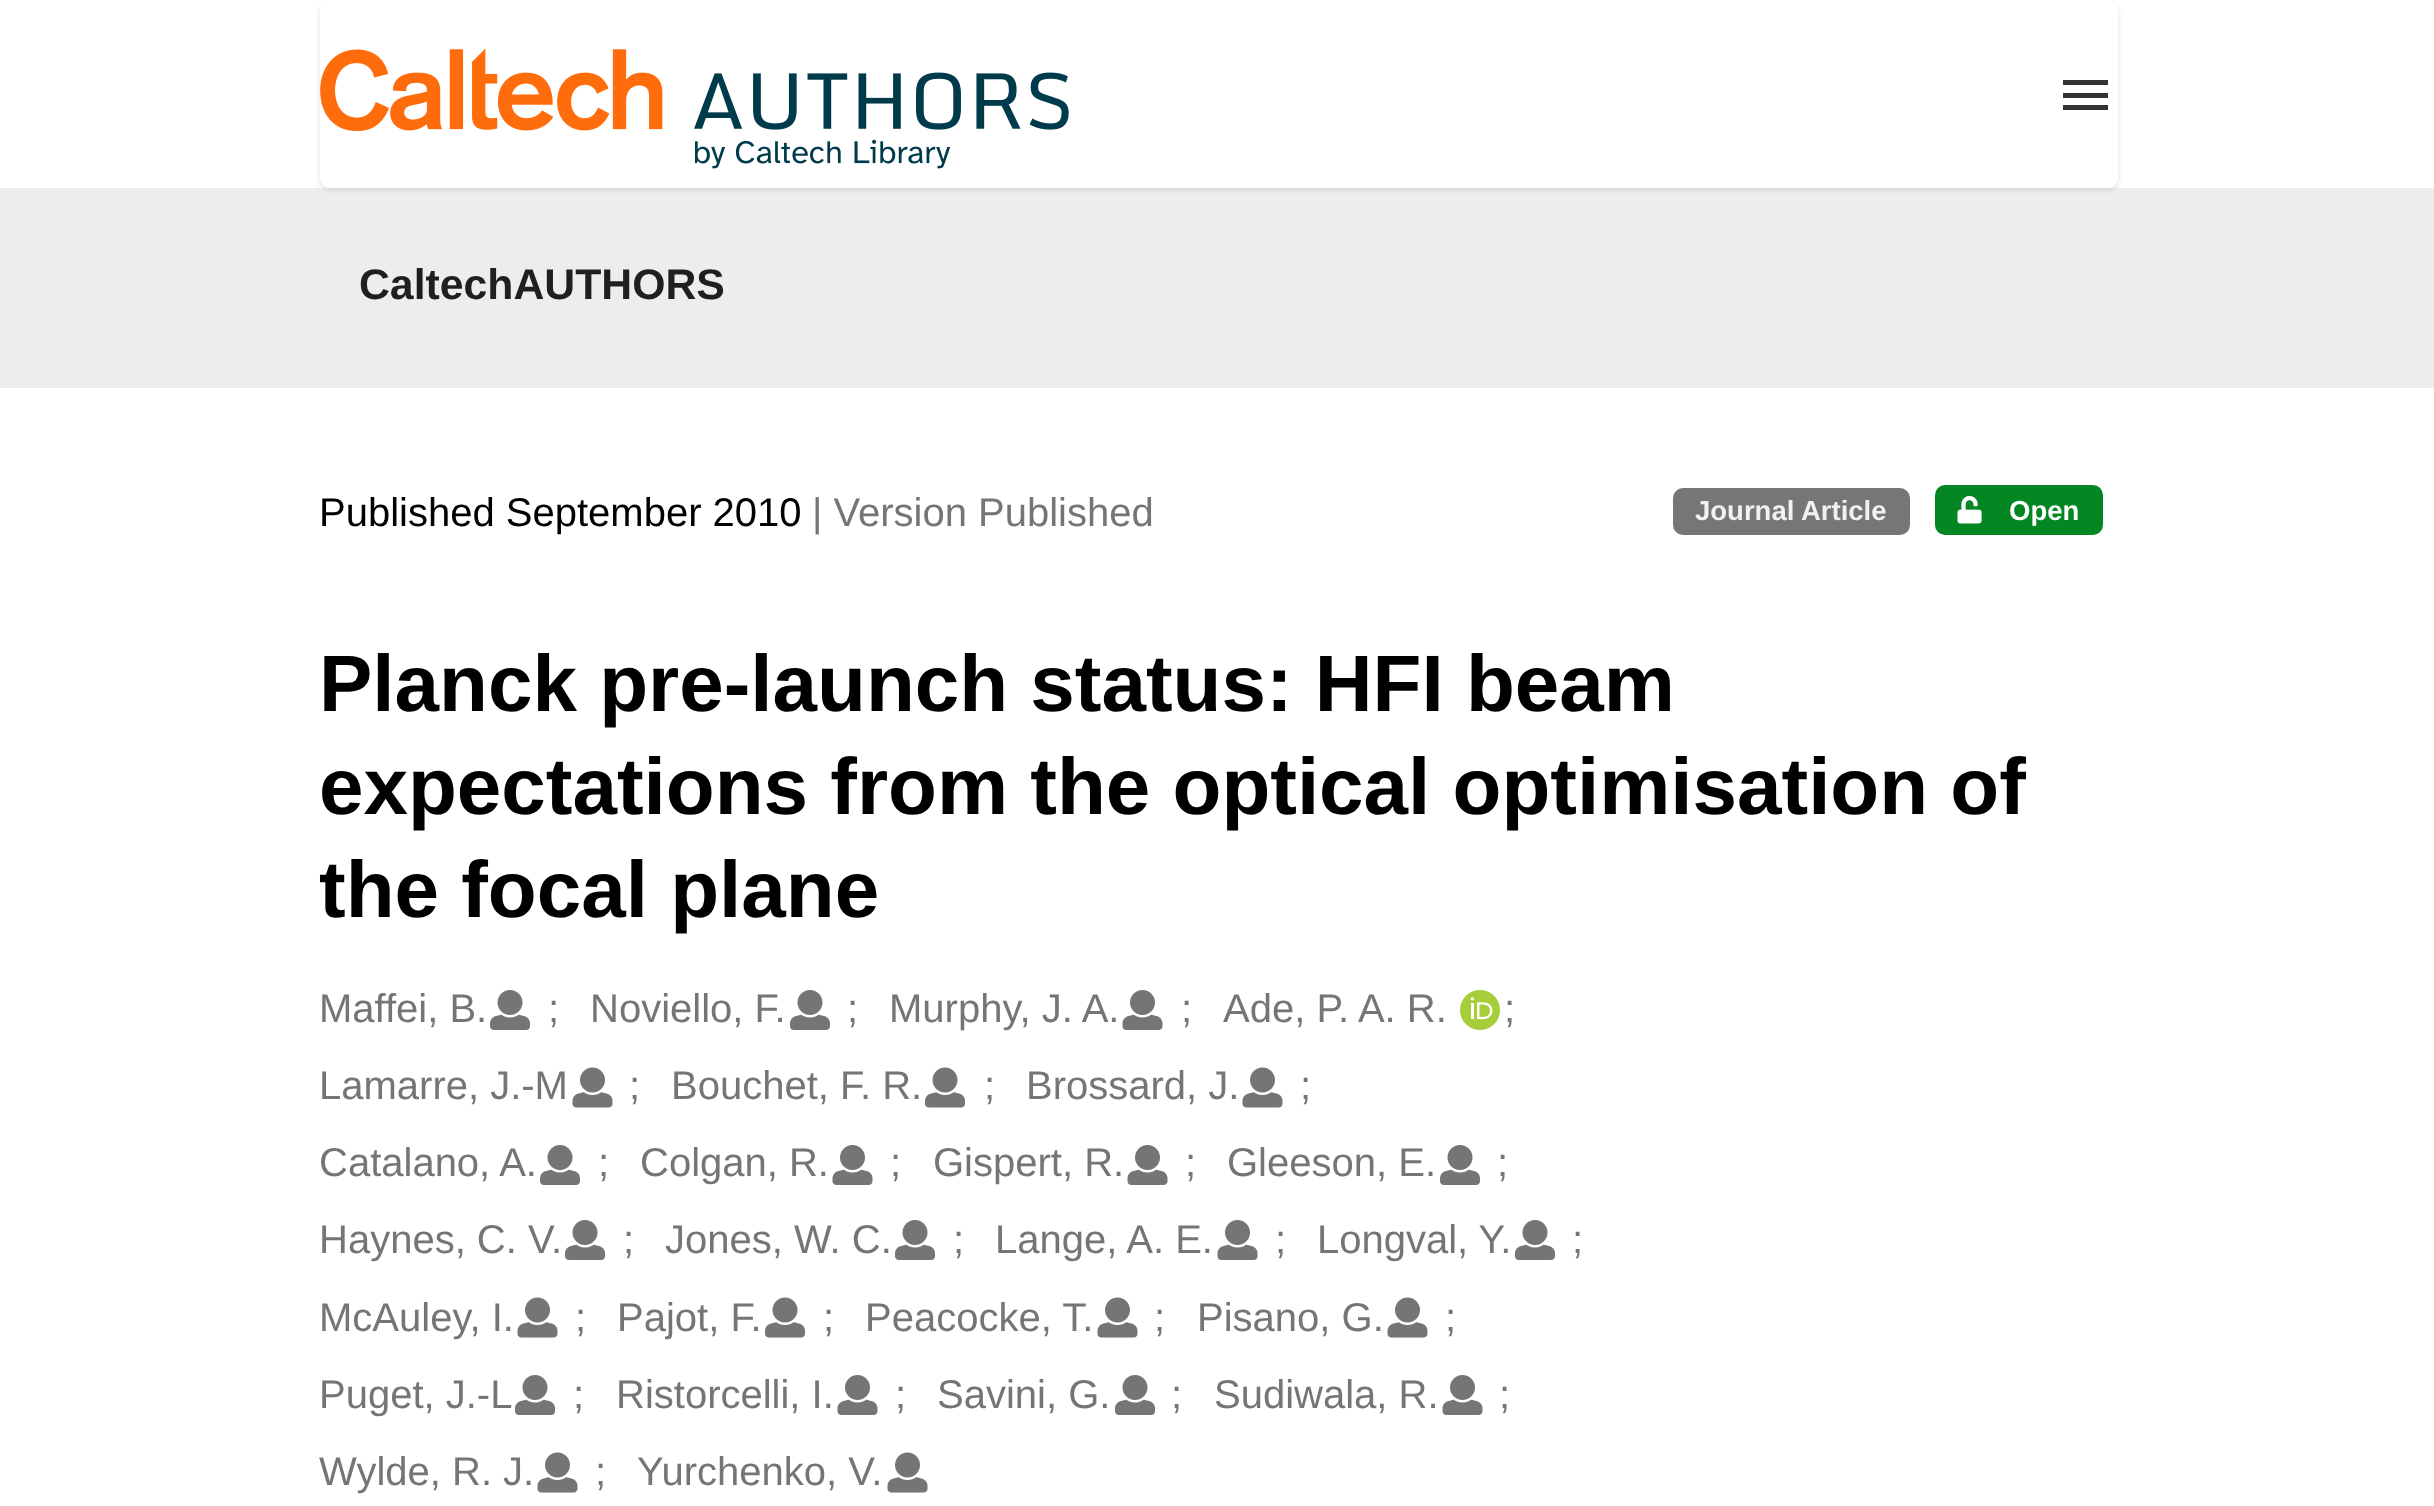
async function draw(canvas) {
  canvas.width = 2434
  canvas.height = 1506
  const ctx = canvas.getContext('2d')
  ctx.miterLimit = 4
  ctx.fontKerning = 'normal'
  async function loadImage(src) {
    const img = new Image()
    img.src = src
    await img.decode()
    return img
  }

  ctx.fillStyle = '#fff'
  ctx.fillRect(0, 0, 2434, 1506)
  ctx.fillStyle = '#ededed'
  ctx.fillRect(0, 188, 2434, 200)
  ctx.save()
  ctx.beginPath()
  ctx.moveTo(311, 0)
  ctx.lineTo(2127, 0)
  ctx.lineTo(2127, 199)
  ctx.lineTo(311, 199)
  ctx.closePath()
  ctx.moveTo(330, 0)
  ctx.lineTo(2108, 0)
  ctx.bezierCurveTo(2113.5, 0, 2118, 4.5, 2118, 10)
  ctx.lineTo(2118, 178)
  ctx.bezierCurveTo(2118, 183.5, 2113.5, 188, 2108, 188)
  ctx.lineTo(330, 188)
  ctx.bezierCurveTo(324.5, 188, 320, 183.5, 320, 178)
  ctx.lineTo(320, 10)
  ctx.bezierCurveTo(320, 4.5, 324.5, 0, 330, 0)
  ctx.closePath()
  ctx.clip('evenodd')
  ctx.fillStyle = '#22242626'
  ctx.filter = 'blur(2.5px)'
  ctx.beginPath()
  ctx.roundRect(320, 3, 1798, 187, 10)
  ctx.fill()
  ctx.filter = 'none'
  ctx.restore()
  ctx.drawImage(await loadImage('image0.png'), 320, 48, 749, 121)
  ctx.fillStyle = '#333'
  ctx.fillRect(2063, 93, 45, 5)
  ctx.fillRect(2063, 80, 45, 5)
  ctx.fillRect(2063, 105, 45, 5)
  ctx.font = 'bold 42.75px Liberation Sans'
  ctx.fillStyle = '#1f1f1f'
  ctx.fillText('CaltechAUTHORS', 359, 299)
  ctx.font = '40px Liberation Sans'
  ctx.fillStyle = '#000'
  ctx.fillText('Published September 2010', 319, 526)
  ctx.fillStyle = '#757575'
  ctx.fillText('| Version Published', 812, 526)
  ctx.fillStyle = '#767676'
  ctx.beginPath()
  ctx.roundRect(1673, 488, 237, 47, 10)
  ctx.fill()
  ctx.font = 'bold 27.5px Liberation Sans'
  ctx.fillStyle = '#f1f1f1'
  ctx.fillText('Journal Article', 1695, 520)
  ctx.fillStyle = '#048622'
  ctx.beginPath()
  ctx.roundRect(1935, 485, 168, 50, 10)
  ctx.fill()
  ctx.drawImage(await loadImage('image1.png'), 1957, 495, 25, 29)
  ctx.fillStyle = '#fff'
  ctx.fillText('Open', 2009, 520)
  ctx.font = 'bold 80px Liberation Sans'
  ctx.fillStyle = '#000'
  ctx.fillText('Planck pre-launch status: HFI beam', 319, 711)
  ctx.fillText('expectations from the optical optimisation of', 319, 814)
  ctx.fillText('the focal plane', 319, 917)
  ctx.font = '40px Liberation Sans'
  ctx.fillStyle = '#757575'
  ctx.fillText('Maffei, B.', 319, 1022)
  ctx.drawImage(await loadImage('image2.png'), 490, 990, 40, 40)
  ctx.fillText(';', 548, 1022)
  ctx.fillText('Noviello, F.', 590, 1022)
  ctx.drawImage(await loadImage('image2.png'), 790, 990, 40, 40)
  ctx.fillText(';', 847, 1022)
  ctx.fillText('Murphy, J. A.', 889, 1022)
  ctx.drawImage(await loadImage('image3.png'), 1122, 990, 41, 40)
  ctx.fillText(';', 1181, 1022)
  ctx.fillText('Ade, P. A. R.', 1223, 1022)
  ctx.drawImage(await loadImage('image4.png'), 1460, 990, 40, 40)
  ctx.fillText(';', 1504, 1022)
  ctx.fillText('Lamarre, J.-M', 319, 1099)
  ctx.drawImage(await loadImage('image5.png'), 572, 1067, 41, 41)
  ctx.fillText(';', 629, 1099)
  ctx.fillText('Bouchet, F. R.', 671, 1099)
  ctx.drawImage(await loadImage('image6.png'), 925, 1067, 40, 41)
  ctx.fillText(';', 984, 1099)
  ctx.fillText('Brossard, J.', 1026, 1099)
  ctx.drawImage(await loadImage('image5.png'), 1242, 1067, 41, 41)
  ctx.fillText(';', 1300, 1099)
  ctx.fillText('Catalano, A.', 319, 1176)
  ctx.drawImage(await loadImage('image2.png'), 540, 1145, 40, 40)
  ctx.fillText(';', 598, 1176)
  ctx.fillText('Colgan, R.', 640, 1176)
  ctx.drawImage(await loadImage('image3.png'), 832, 1145, 41, 40)
  ctx.fillText(';', 890, 1176)
  ctx.fillText('Gispert, R.', 933, 1176)
  ctx.drawImage(await loadImage('image3.png'), 1127, 1145, 41, 40)
  ctx.fillText(';', 1185, 1176)
  ctx.fillText('Gleeson, E.', 1227, 1176)
  ctx.drawImage(await loadImage('image2.png'), 1440, 1145, 40, 40)
  ctx.fillText(';', 1497, 1176)
  ctx.fillText('Haynes, C. V.', 319, 1253)
  ctx.drawImage(await loadImage('image2.png'), 565, 1220, 40, 40)
  ctx.fillText(';', 623, 1253)
  ctx.fillText('Jones, W. C.', 665, 1253)
  ctx.drawImage(await loadImage('image2.png'), 895, 1220, 40, 40)
  ctx.fillText(';', 953, 1253)
  ctx.fillText('Lange, A. E.', 995, 1253)
  ctx.drawImage(await loadImage('image3.png'), 1217, 1220, 41, 40)
  ctx.fillText(';', 1275, 1253)
  ctx.fillText('Longval, Y.', 1317, 1253)
  ctx.drawImage(await loadImage('image2.png'), 1515, 1220, 40, 40)
  ctx.fillText(';', 1572, 1253)
  ctx.fillText('McAuley, I.', 319, 1331)
  ctx.drawImage(await loadImage('image5.png'), 517, 1297, 41, 41)
  ctx.fillText(';', 575, 1331)
  ctx.fillText('Pajot, F.', 617, 1331)
  ctx.drawImage(await loadImage('image6.png'), 765, 1297, 40, 41)
  ctx.fillText(';', 823, 1331)
  ctx.fillText('Peacocke, T.', 865, 1331)
  ctx.drawImage(await loadImage('image5.png'), 1097, 1297, 41, 41)
  ctx.fillText(';', 1154, 1331)
  ctx.fillText('Pisano, G.', 1197, 1331)
  ctx.drawImage(await loadImage('image5.png'), 1387, 1297, 41, 41)
  ctx.fillText(';', 1445, 1331)
  ctx.fillText('Puget, J.-L', 319, 1408)
  ctx.drawImage(await loadImage('image2.png'), 515, 1375, 40, 40)
  ctx.fillText(';', 573, 1408)
  ctx.fillText('Ristorcelli, I.', 616, 1408)
  ctx.drawImage(await loadImage('image3.png'), 837, 1375, 41, 40)
  ctx.fillText(';', 895, 1408)
  ctx.fillText('Savini, G.', 937, 1408)
  ctx.drawImage(await loadImage('image2.png'), 1115, 1375, 40, 40)
  ctx.fillText(';', 1171, 1408)
  ctx.fillText('Sudiwala, R.', 1214, 1408)
  ctx.drawImage(await loadImage('image3.png'), 1442, 1375, 41, 40)
  ctx.fillText(';', 1499, 1408)
  ctx.fillText('Wylde, R. J.', 319, 1485)
  ctx.drawImage(await loadImage('image5.png'), 537, 1452, 41, 41)
  ctx.fillText(';', 595, 1485)
  ctx.fillText('Yurchenko, V.', 637, 1485)
  ctx.drawImage(await loadImage('image5.png'), 887, 1452, 41, 41)
}

draw(document.querySelector('canvas'))
